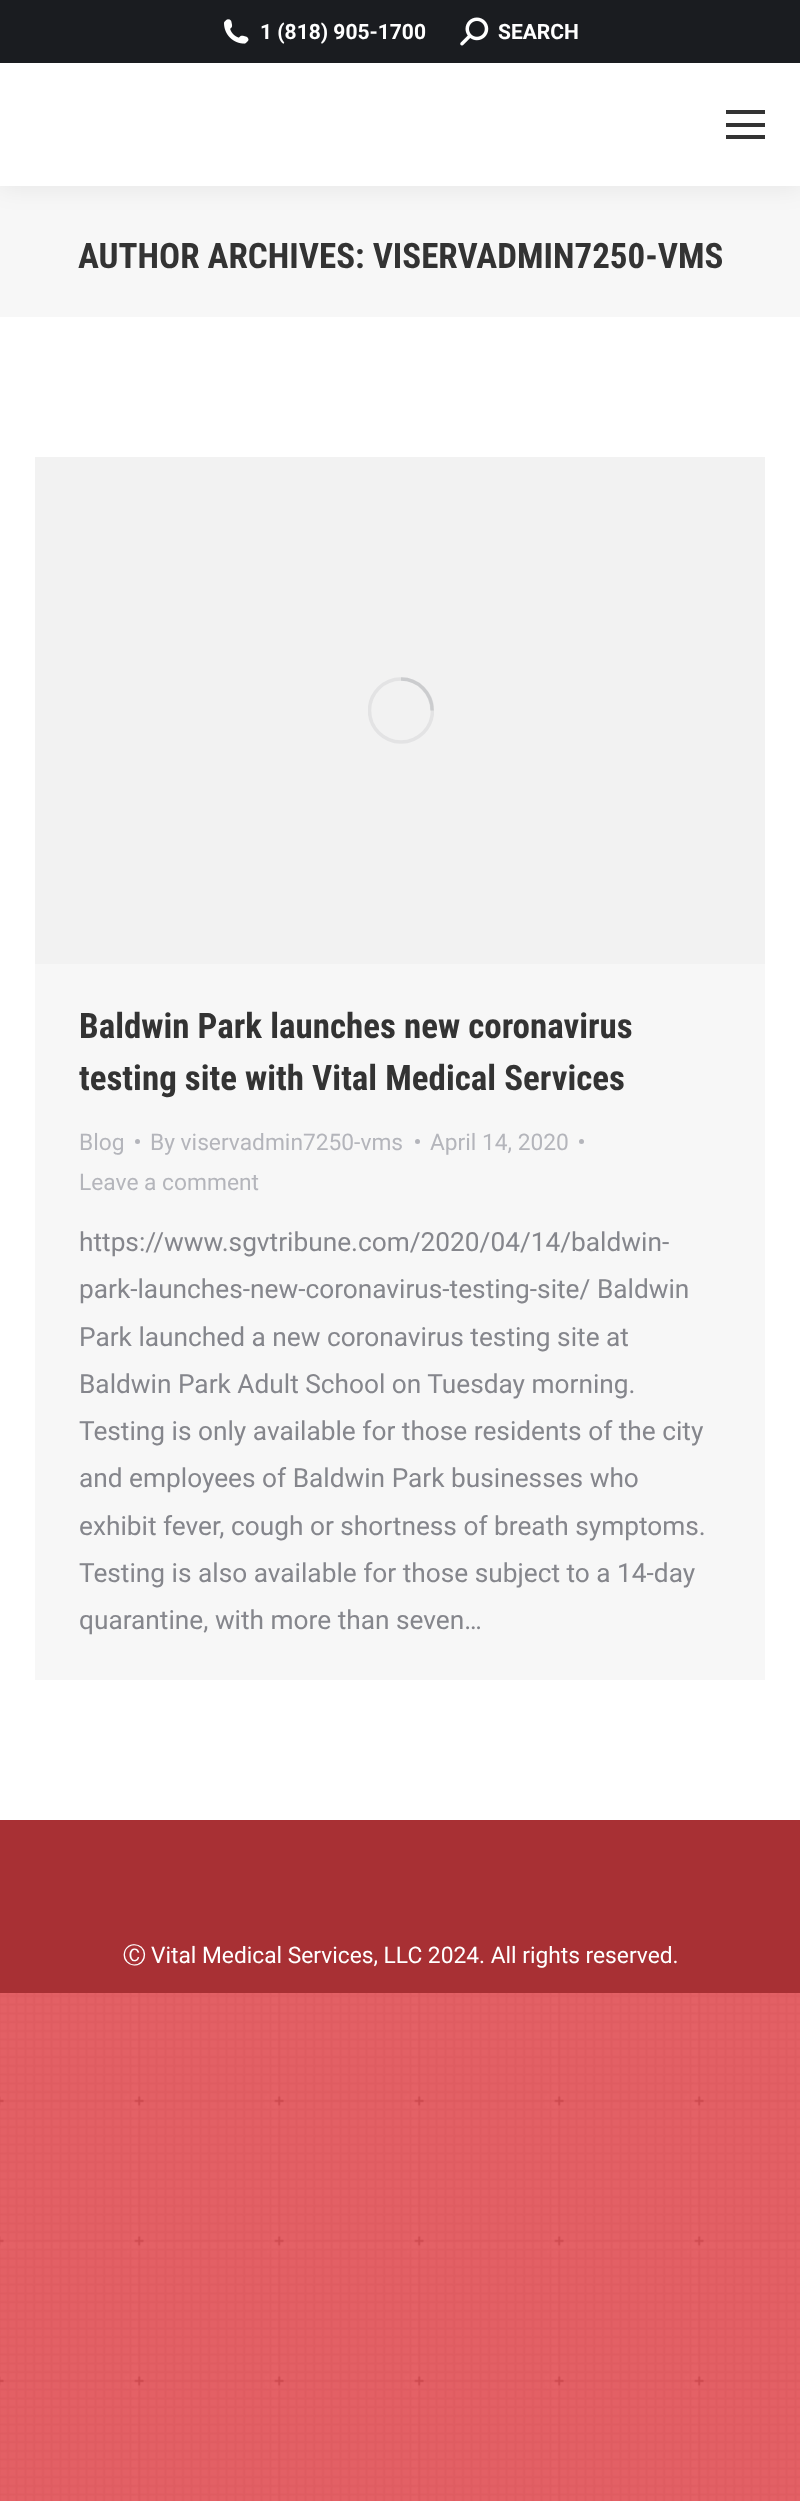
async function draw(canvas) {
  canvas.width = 800
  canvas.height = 2501
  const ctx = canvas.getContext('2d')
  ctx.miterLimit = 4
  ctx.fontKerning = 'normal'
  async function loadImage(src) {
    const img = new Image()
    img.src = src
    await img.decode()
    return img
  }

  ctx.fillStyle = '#e1474d'
  ctx.fillRect(0, 0, 800, 2501)
  ctx.drawImage(await loadImage('image0.png'), 0, 1993, 800, 508)
  ctx.fillStyle = '#fff'
  ctx.fillRect(0, 317, 800, 1503)
  ctx.fillStyle = '#f7f7f7'
  ctx.fillRect(0, 186, 800, 131)
  ctx.fillStyle = '#00000012'
  ctx.filter = 'blur(13px)'
  ctx.beginPath()
  ctx.rect(-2, -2, 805, 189)
  ctx.fill()
  ctx.filter = 'none'
  ctx.fillStyle = '#fff'
  ctx.fillRect(0, 63, 800, 123)
  ctx.fillStyle = '#1a1c20'
  ctx.fillRect(0, 0, 800, 63)
  ctx.drawImage(await loadImage('image1.png'), 224, 19, 25, 25)
  ctx.font = 'bold 21px Roboto'
  ctx.fillStyle = '#fff'
  ctx.fillText('1 (818) 905-1700', 260, 39)
  ctx.drawImage(await loadImage('image2.png'), 460, 17, 29, 29)
  ctx.fillText('SEARCH', 498, 39)
  ctx.fillStyle = '#333'
  ctx.fillRect(726, 110, 39, 4)
  ctx.fillRect(726, 123, 39, 4)
  ctx.fillRect(726, 135, 39, 4)
  ctx.font = 'bold 35px Roboto Condensed'
  ctx.fillText('AUTHOR ARCHIVES: VISERVADMIN7250-VMS', 78, 268)
  ctx.fillStyle = '#f7f7f7'
  ctx.fillRect(35, 964, 730, 716)
  ctx.fillStyle = '#f2f2f2'
  ctx.fillRect(35, 457, 730, 507)
  ctx.save()
  ctx.beginPath()
  ctx.rect(368, 677, 66, 67)
  ctx.clip()
  ctx.beginPath()
  ctx.arc(401, 710.5, 31.5, 0, 2 * Math.PI)
  ctx.strokeStyle = '#e3e3e4'
  ctx.lineWidth = 3.5
  ctx.stroke()
  ctx.restore()
  ctx.beginPath()
  ctx.moveTo(432, 710.5)
  ctx.bezierCurveTo(432, 693, 418, 679, 401, 679)
  ctx.strokeStyle = '#85868c40'
  ctx.lineWidth = 3.5
  ctx.stroke()
  ctx.fillStyle = '#333'
  ctx.fillText('Baldwin Park launches new coronavirus', 79, 1038)
  ctx.fillText('testing site with Vital Medical Services', 79, 1090)
  ctx.font = '22.75px Roboto'
  ctx.fillStyle = '#b4b5bb'
  ctx.fillText('Blog', 79, 1150)
  ctx.beginPath()
  ctx.arc(137.5, 1141.5, 2.5, 0, 2 * Math.PI)
  ctx.fill()
  ctx.fillText('By viservadmin7250-vms', 150, 1150)
  ctx.beginPath()
  ctx.arc(417.5, 1141.5, 2.5, 0, 2 * Math.PI)
  ctx.fill()
  ctx.fillText('April 14, 2020', 430, 1150)
  ctx.beginPath()
  ctx.arc(581.5, 1141.5, 2.5, 0, 2 * Math.PI)
  ctx.fill()
  ctx.fillText('Leave a comment', 79, 1190)
  ctx.font = '26.25px Roboto'
  ctx.fillStyle = '#85868c'
  ctx.fillText('https://www.sgvtribune.com/2020/04/14/baldwin-', 79, 1251)
  ctx.fillText('park-launches-new-coronavirus-testing-site/ Baldwin', 79, 1298)
  ctx.fillText('Park launched a new coronavirus testing site at', 79, 1346)
  ctx.fillText('Baldwin Park Adult School on Tuesday morning.', 79, 1393)
  ctx.fillText('Testing is only available for those residents of the city', 79, 1440)
  ctx.fillText('and employees of Baldwin Park businesses who', 79, 1487)
  ctx.fillText('exhibit fever, cough or shortness of breath symptoms.', 79, 1535)
  ctx.fillText('Testing is also available for those subject to a 14-day', 79, 1582)
  ctx.fillText('quarantine, with more than seven…', 79, 1629)
  ctx.fillStyle = '#a83034'
  ctx.fillRect(0, 1820, 800, 173)
  ctx.font = '500 22.75px WenQuanYi Zen Hei'
  ctx.fillStyle = '#fff'
  ctx.fillText('Ⓒ', 123, 1963)
  ctx.font = '22.75px Roboto'
  ctx.fillText('Vital Medical Services, LLC 2024. All rights reserved.', 151, 1963)
}

draw(document.querySelector('canvas'))
